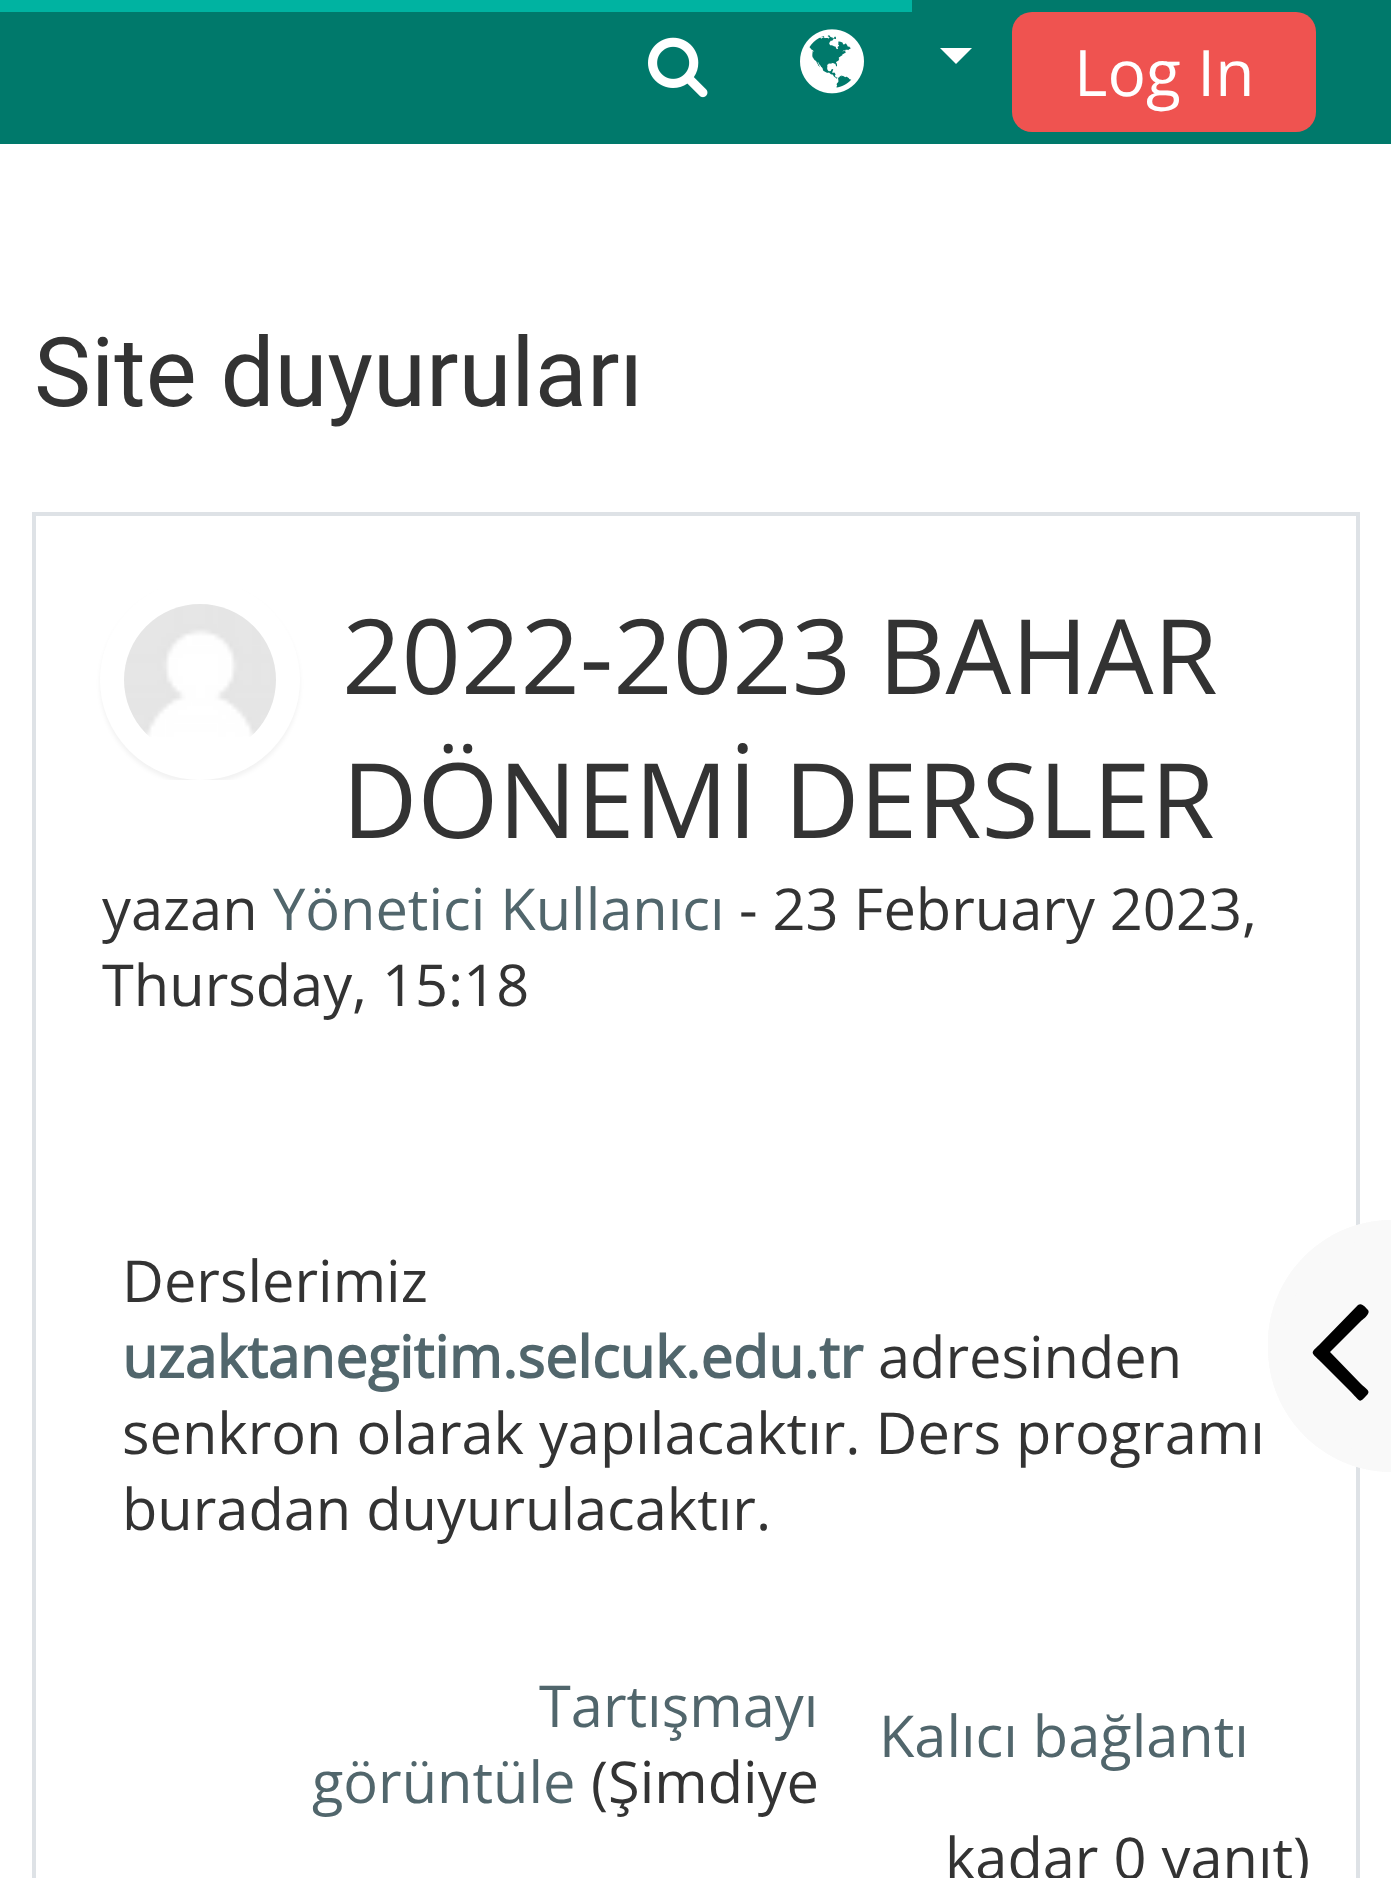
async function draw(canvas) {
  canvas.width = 1391
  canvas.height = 1878
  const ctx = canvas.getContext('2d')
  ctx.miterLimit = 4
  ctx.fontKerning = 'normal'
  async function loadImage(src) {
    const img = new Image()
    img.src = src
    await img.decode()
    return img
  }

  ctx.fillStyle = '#fff'
  ctx.fillRect(0, 0, 1391, 1878)
  ctx.fillStyle = '#00796b'
  ctx.fillRect(0, 0, 1391, 144)
  ctx.fillStyle = '#00b3a1'
  ctx.fillRect(0, 0, 912, 12)
  ctx.drawImage(await loadImage('image0.png'), 648, 37, 60, 61)
  ctx.drawImage(await loadImage('image1.png'), 800, 29, 64, 65)
  ctx.fillStyle = '#fff'
  ctx.beginPath()
  ctx.moveTo(940, 48)
  ctx.lineTo(972, 48)
  ctx.lineTo(956, 64)
  ctx.closePath()
  ctx.fill()
  ctx.fillStyle = '#ef5350'
  ctx.beginPath()
  ctx.roundRect(1012, 12, 304, 120, 20)
  ctx.fill()
  ctx.font = '64px Open Sans'
  ctx.fillStyle = '#fff'
  ctx.fillText('Log In', 1074, 96)
  ctx.font = '96px Roboto'
  ctx.fillStyle = '#333'
  ctx.fillText('Site duyuruları', 34, 406)
  ctx.strokeStyle = '#dee2e6'
  ctx.lineWidth = 4
  ctx.strokeRect(34, 514, 1324, 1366)
  ctx.save()
  ctx.beginPath()
  ctx.rect(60, 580, 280, 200)
  ctx.clip()
  ctx.fillStyle = '#0000000d'
  ctx.filter = 'blur(2px)'
  ctx.beginPath()
  ctx.roundRect(100, 584, 200, 200, 100)
  ctx.fill()
  ctx.filter = 'none'
  ctx.restore()
  ctx.fillStyle = '#fff'
  ctx.beginPath()
  ctx.arc(200, 680, 90, 0, 2 * Math.PI)
  ctx.fill()
  ctx.strokeStyle = '#fff'
  ctx.lineWidth = 20
  ctx.stroke()
  ctx.drawImage(await loadImage('image2.png'), 124, 604, 152, 133)
  ctx.font = '104px Open Sans'
  ctx.fillStyle = '#333'
  ctx.fillText('2022-2023 BAHAR', 342, 694)
  ctx.fillText('DÖNEMİ DERSLER', 342, 838)
  ctx.font = '57.75px Open Sans'
  ctx.fillText('yazan', 102, 930)
  ctx.fillStyle = '#51666c'
  ctx.fillText('Yönetici Kullanıcı', 273, 930)
  ctx.fillStyle = '#333'
  ctx.fillText('- 23 February 2023,', 739, 930)
  ctx.fillText('Thursday, 15:18', 102, 1006)
  ctx.fillText('Derslerimiz', 122, 1302)
  ctx.font = 'bold 57.75px Open Sans'
  ctx.fillStyle = '#51666c'
  ctx.fillText('uzaktanegitim.selcuk.edu.tr', 122, 1378)
  ctx.font = '57.75px Open Sans'
  ctx.fillStyle = '#333'
  ctx.fillText('adresinden', 878, 1378)
  ctx.fillText('senkron olarak yapılacaktır. Ders programı', 122, 1454)
  ctx.fillText('buradan duyurulacaktır.', 122, 1530)
  ctx.fillStyle = '#51666c'
  ctx.fillText('Tartışmayı', 539, 1727)
  ctx.fillText('görüntüle', 312, 1803)
  ctx.fillStyle = '#333'
  ctx.fillText('(Şimdiye', 591, 1803)
  ctx.fillText('kadar 0 yanıt)', 945, 1879)
  ctx.fillStyle = '#51666c'
  ctx.fillText('Kalıcı bağlantı', 879, 1757)
  ctx.fillStyle = '#f9f9f9'
  ctx.beginPath()
  ctx.moveTo(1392, 1220)
  ctx.lineTo(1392, 1472)
  ctx.bezierCurveTo(1323.5, 1472, 1268, 1416.5, 1268, 1348)
  ctx.lineTo(1268, 1344)
  ctx.bezierCurveTo(1268, 1275.5, 1323.5, 1220, 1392, 1220)
  ctx.closePath()
  ctx.fill()
  ctx.beginPath()
  ctx.moveTo(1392, 1220)
  ctx.lineTo(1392, 1472)
  ctx.bezierCurveTo(1324, 1472, 1268, 1416, 1268, 1348)
  ctx.lineTo(1268, 1344)
  ctx.bezierCurveTo(1268, 1276, 1324, 1220, 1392, 1220)
  ctx.closePath()
  ctx.moveTo(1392, 1236)
  ctx.lineTo(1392, 1456)
  ctx.bezierCurveTo(1332, 1456, 1284, 1408, 1284, 1348)
  ctx.lineTo(1284, 1344)
  ctx.bezierCurveTo(1284, 1284, 1332, 1236, 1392, 1236)
  ctx.closePath()
  ctx.fill('evenodd')
  ctx.fillStyle = '#000'
  ctx.beginPath()
  ctx.moveTo(1368, 1310)
  ctx.bezierCurveTo(1371, 1314, 1362, 1320, 1361, 1321)
  ctx.lineTo(1330, 1352)
  ctx.lineTo(1361, 1384)
  ctx.bezierCurveTo(1366, 1389, 1372, 1391, 1366, 1396)
  ctx.bezierCurveTo(1359, 1404, 1360, 1401, 1351, 1392)
  ctx.lineTo(1321, 1362)
  ctx.bezierCurveTo(1310, 1351, 1310, 1354, 1321, 1343)
  ctx.lineTo(1358, 1305)
  ctx.bezierCurveTo(1362, 1302, 1366, 1308, 1368, 1310)
  ctx.closePath()
  ctx.fill()
}

draw(document.querySelector('canvas'))
